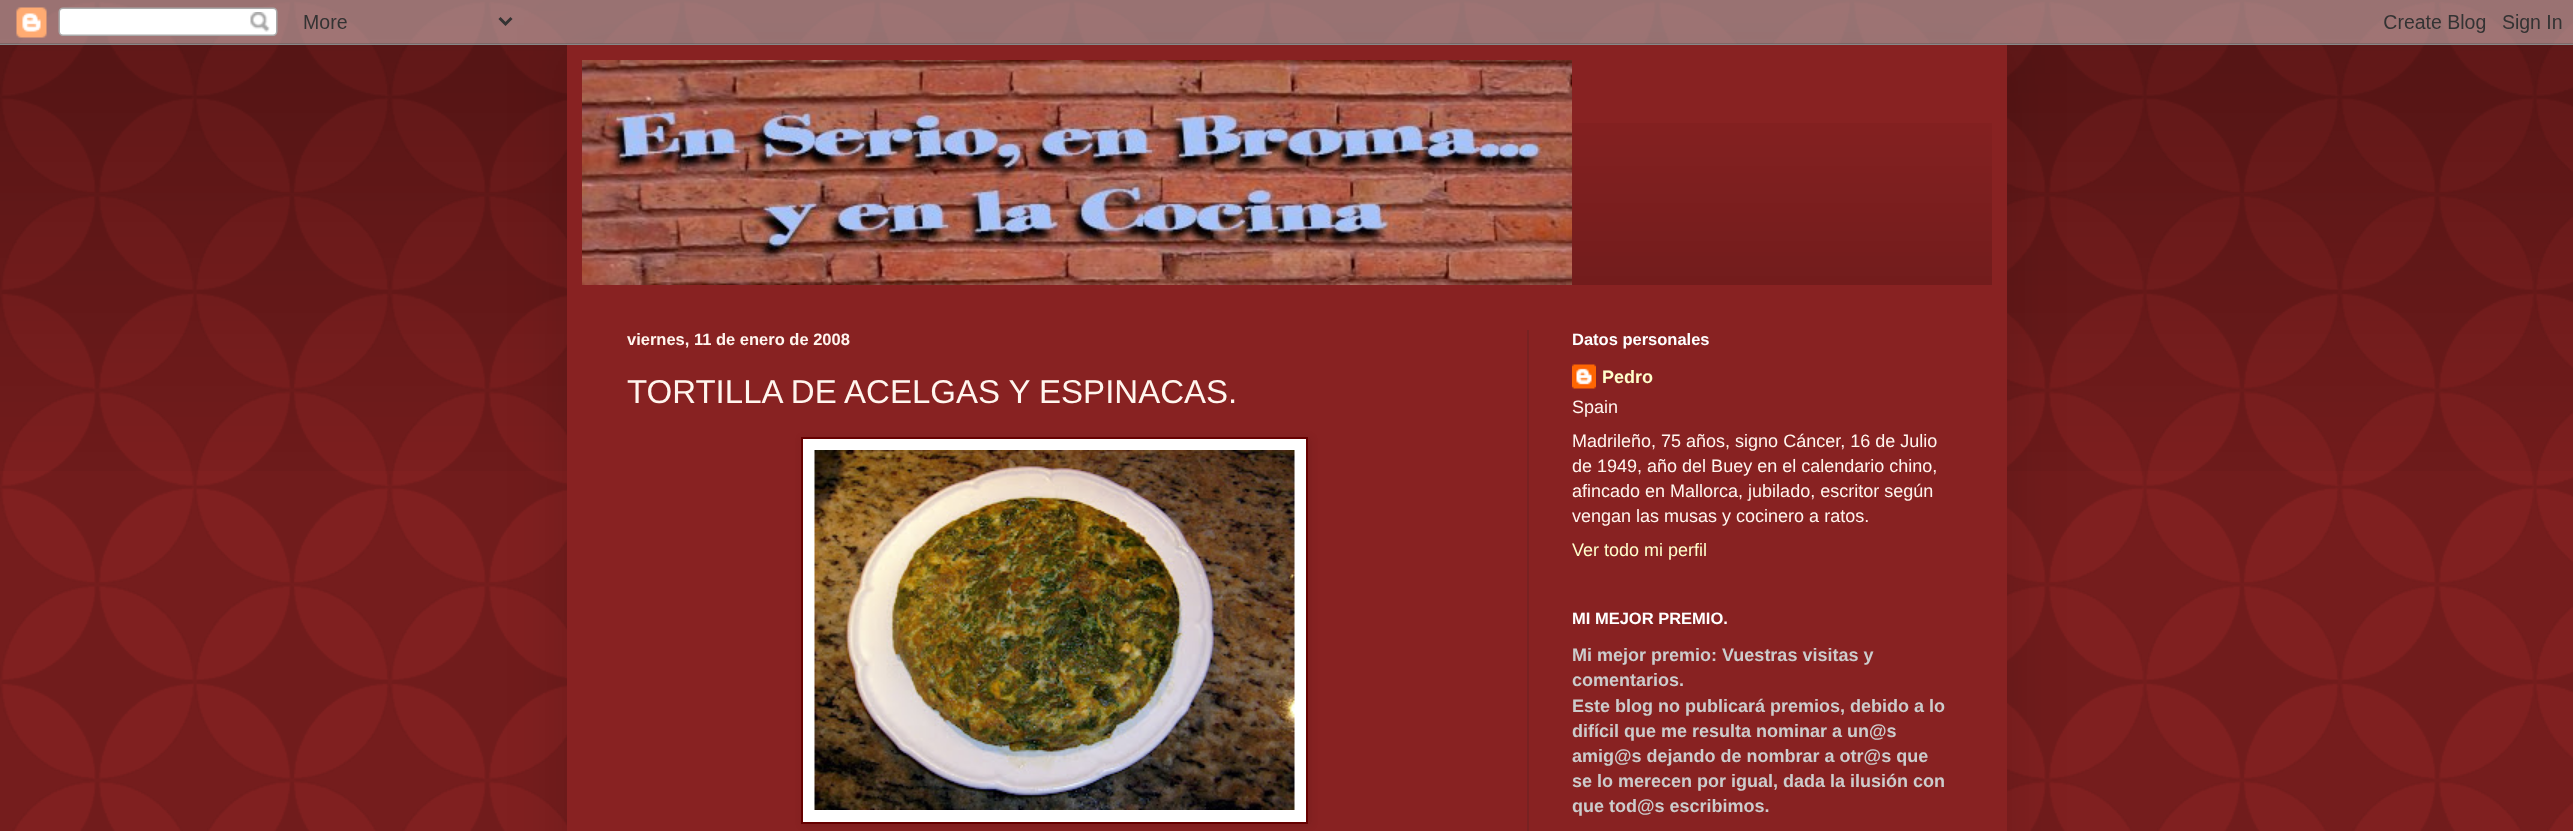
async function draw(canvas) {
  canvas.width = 2573
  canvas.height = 831
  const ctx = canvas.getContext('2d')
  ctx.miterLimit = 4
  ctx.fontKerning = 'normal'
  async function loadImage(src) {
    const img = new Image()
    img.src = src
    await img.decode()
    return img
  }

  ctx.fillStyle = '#822'
  ctx.fillRect(0, 0, 2573, 831)
  ctx.drawImage(await loadImage('image0.png'), 0, 0, 2573, 831)
  ctx.drawImage(await loadImage('image1.png'), 0, 0, 2573, 471)
  ctx.fillStyle = '#00000026'
  ctx.filter = 'blur(30px)'
  ctx.beginPath()
  ctx.rect(567, 45, 1440, 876)
  ctx.fill()
  ctx.filter = 'none'
  ctx.drawImage(await loadImage('image2.png'), 0, 0, 2573, 45)
  ctx.fillStyle = '#822'
  ctx.fillRect(567, 45, 1440, 786)
  ctx.drawImage(await loadImage('image3.png'), 1572, 123, 420, 162)
  ctx.drawImage(await loadImage('image4.png'), 582, 60, 990, 225)
  ctx.fillStyle = '#722'
  ctx.fillRect(1527, 330, 2, 501)
  ctx.font = 'bold 16.5px Liberation Sans'
  ctx.fillStyle = '#fff5ee'
  ctx.fillText('viernes, 11 de enero de 2008', 627, 345)
  ctx.font = '33px Liberation Sans'
  ctx.fillText('TORTILLA DE ACELGAS Y ESPINACAS.', 627, 403)
  ctx.fillStyle = '#0000001a'
  ctx.filter = 'blur(4px)'
  ctx.beginPath()
  ctx.rect(803, 438, 507, 387)
  ctx.fill()
  ctx.filter = 'none'
  ctx.fillStyle = '#fff'
  ctx.beginPath()
  ctx.rect(802, 438, 505, 385)
  ctx.fill()
  ctx.strokeStyle = '#600'
  ctx.lineWidth = 2
  ctx.stroke()
  ctx.drawImage(await loadImage('image5.png'), 814, 450, 481, 360)
  ctx.font = 'bold 16.5px Liberation Sans'
  ctx.fillText('Datos personales', 1572, 345)
  ctx.drawImage(await loadImage('image6.png'), 1572, 364, 24, 25)
  ctx.font = 'bold 18px Liberation Sans'
  ctx.fillStyle = '#ffc'
  ctx.fillText('Pedro', 1602, 383)
  ctx.font = '18px Liberation Sans'
  ctx.fillStyle = '#fff5ee'
  ctx.fillText('Spain', 1572, 413)
  ctx.fillText('Madrileño, 75 años, signo Cáncer, 16 de Julio', 1572, 447)
  ctx.fillText('de 1949, año del Buey en el calendario chino,', 1572, 472)
  ctx.fillText('afincado en Mallorca, jubilado, escritor según', 1572, 497)
  ctx.fillText('vengan las musas y cocinero a ratos.', 1572, 522)
  ctx.fillStyle = '#ffc'
  ctx.fillText('Ver todo mi perfil', 1572, 556)
  ctx.font = 'bold 16.5px Liberation Sans'
  ctx.fillStyle = '#fff'
  ctx.fillText('MI MEJOR PREMIO.', 1572, 624)
  ctx.font = 'bold 18px Liberation Sans'
  ctx.fillStyle = '#ccc'
  ctx.fillText('Mi mejor premio: Vuestras visitas y', 1572, 661)
  ctx.fillText('comentarios.', 1572, 686)
  ctx.fillText('Este blog no publicará premios, debido a lo', 1572, 712)
  ctx.fillText('difícil que me resulta nominar a un@s', 1572, 737)
  ctx.fillText('amig@s dejando de nombrar a otr@s que', 1572, 762)
  ctx.fillText('se lo merecen por igual, dada la ilusión con', 1572, 787)
  ctx.fillText('que tod@s escribimos.', 1572, 812)
}

draw(document.querySelector('canvas'))
